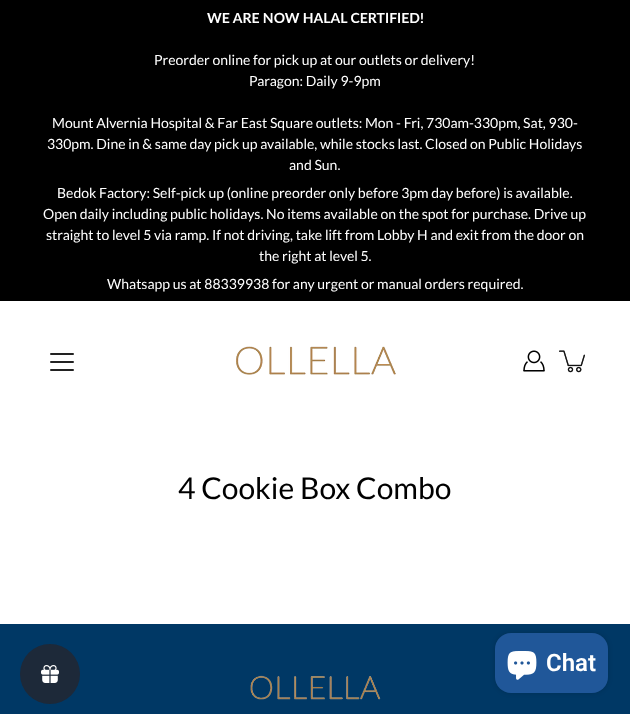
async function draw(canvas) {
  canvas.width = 630
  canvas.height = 714
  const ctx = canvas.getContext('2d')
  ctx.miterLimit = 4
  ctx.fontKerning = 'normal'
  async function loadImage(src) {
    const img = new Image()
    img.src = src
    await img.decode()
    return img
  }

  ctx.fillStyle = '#fff'
  ctx.fillRect(0, 0, 630, 714)
  ctx.fillStyle = '#000'
  ctx.fillRect(0, 0, 630, 301)
  ctx.font = 'bold 14px Lato'
  ctx.fillStyle = '#fff'
  ctx.fillText('WE ARE NOW HALAL CERTIFIED!', 207, 23)
  ctx.font = '14px Lato'
  ctx.fillText('Preorder online for pick up at our outlets or delivery!', 154, 65)
  ctx.fillText('Paragon: Daily 9-9pm', 249, 86)
  ctx.fillText('Mount Alvernia Hospital & Far East Square outlets: Mon - Fri, 730am-330pm, Sat, 930-', 52, 128)
  ctx.fillText('330pm. Dine in & same day pick up available, while stocks last. Closed on Public Holidays', 47, 149)
  ctx.fillText('and Sun.', 289, 170)
  ctx.fillText('Bedok Factory: Self-pick up (online preorder only before 3pm day before) is available.', 57, 198)
  ctx.fillText('Open daily including public holidays. No items available on the spot for purchase. Drive up', 43, 219)
  ctx.fillText('straight to level 5 via ramp. If not driving, take lift from Lobby H and exit from the door on', 46, 240)
  ctx.fillText('the right at level 5.', 259, 261)
  ctx.fillText('Whatsapp us at 88339938 for any urgent or manual orders required.', 107, 289)
  ctx.drawImage(await loadImage('image0.png'), 236, 346, 160, 29)
  ctx.fillStyle = '#222'
  ctx.beginPath()
  ctx.roundRect(50, 361, 24, 2, 1)
  ctx.fill()
  ctx.beginPath()
  ctx.roundRect(50, 353, 24, 2, 1)
  ctx.fill()
  ctx.beginPath()
  ctx.roundRect(50, 369, 24, 2, 1)
  ctx.fill()
  ctx.drawImage(await loadImage('image1.png'), 523, 350, 22, 22)
  ctx.drawImage(await loadImage('image2.png'), 559, 350, 26, 23)
  ctx.font = '30px Lato'
  ctx.fillStyle = '#000'
  ctx.fillText('4 Cookie Box Combo', 178, 499)
  ctx.fillStyle = '#003865'
  ctx.fillRect(0, 624, 630, 90)
  ctx.drawImage(await loadImage('image3.png'), 250, 675, 131, 25)
  ctx.fillStyle = '#1d2939'
  ctx.beginPath()
  ctx.arc(50, 674, 30, 0, 2 * Math.PI)
  ctx.fill()
  ctx.drawImage(await loadImage('image4.png'), 41, 665, 18, 18)
  ctx.fillStyle = '#00000026'
  ctx.filter = 'blur(2.5px)'
  ctx.beginPath()
  ctx.roundRect(495, 633, 113, 60, 16)
  ctx.fill()
  ctx.filter = 'none'
  ctx.fillStyle = '#205799'
  ctx.beginPath()
  ctx.roundRect(495, 633, 113, 60, 16)
  ctx.fill()
  ctx.drawImage(await loadImage('image5.png'), 507, 651, 30, 29)
  ctx.font = '600 24px Roboto'
  ctx.fillStyle = '#fff'
  ctx.fillText('Chat', 546, 671)
}

draw(document.querySelector('canvas'))
